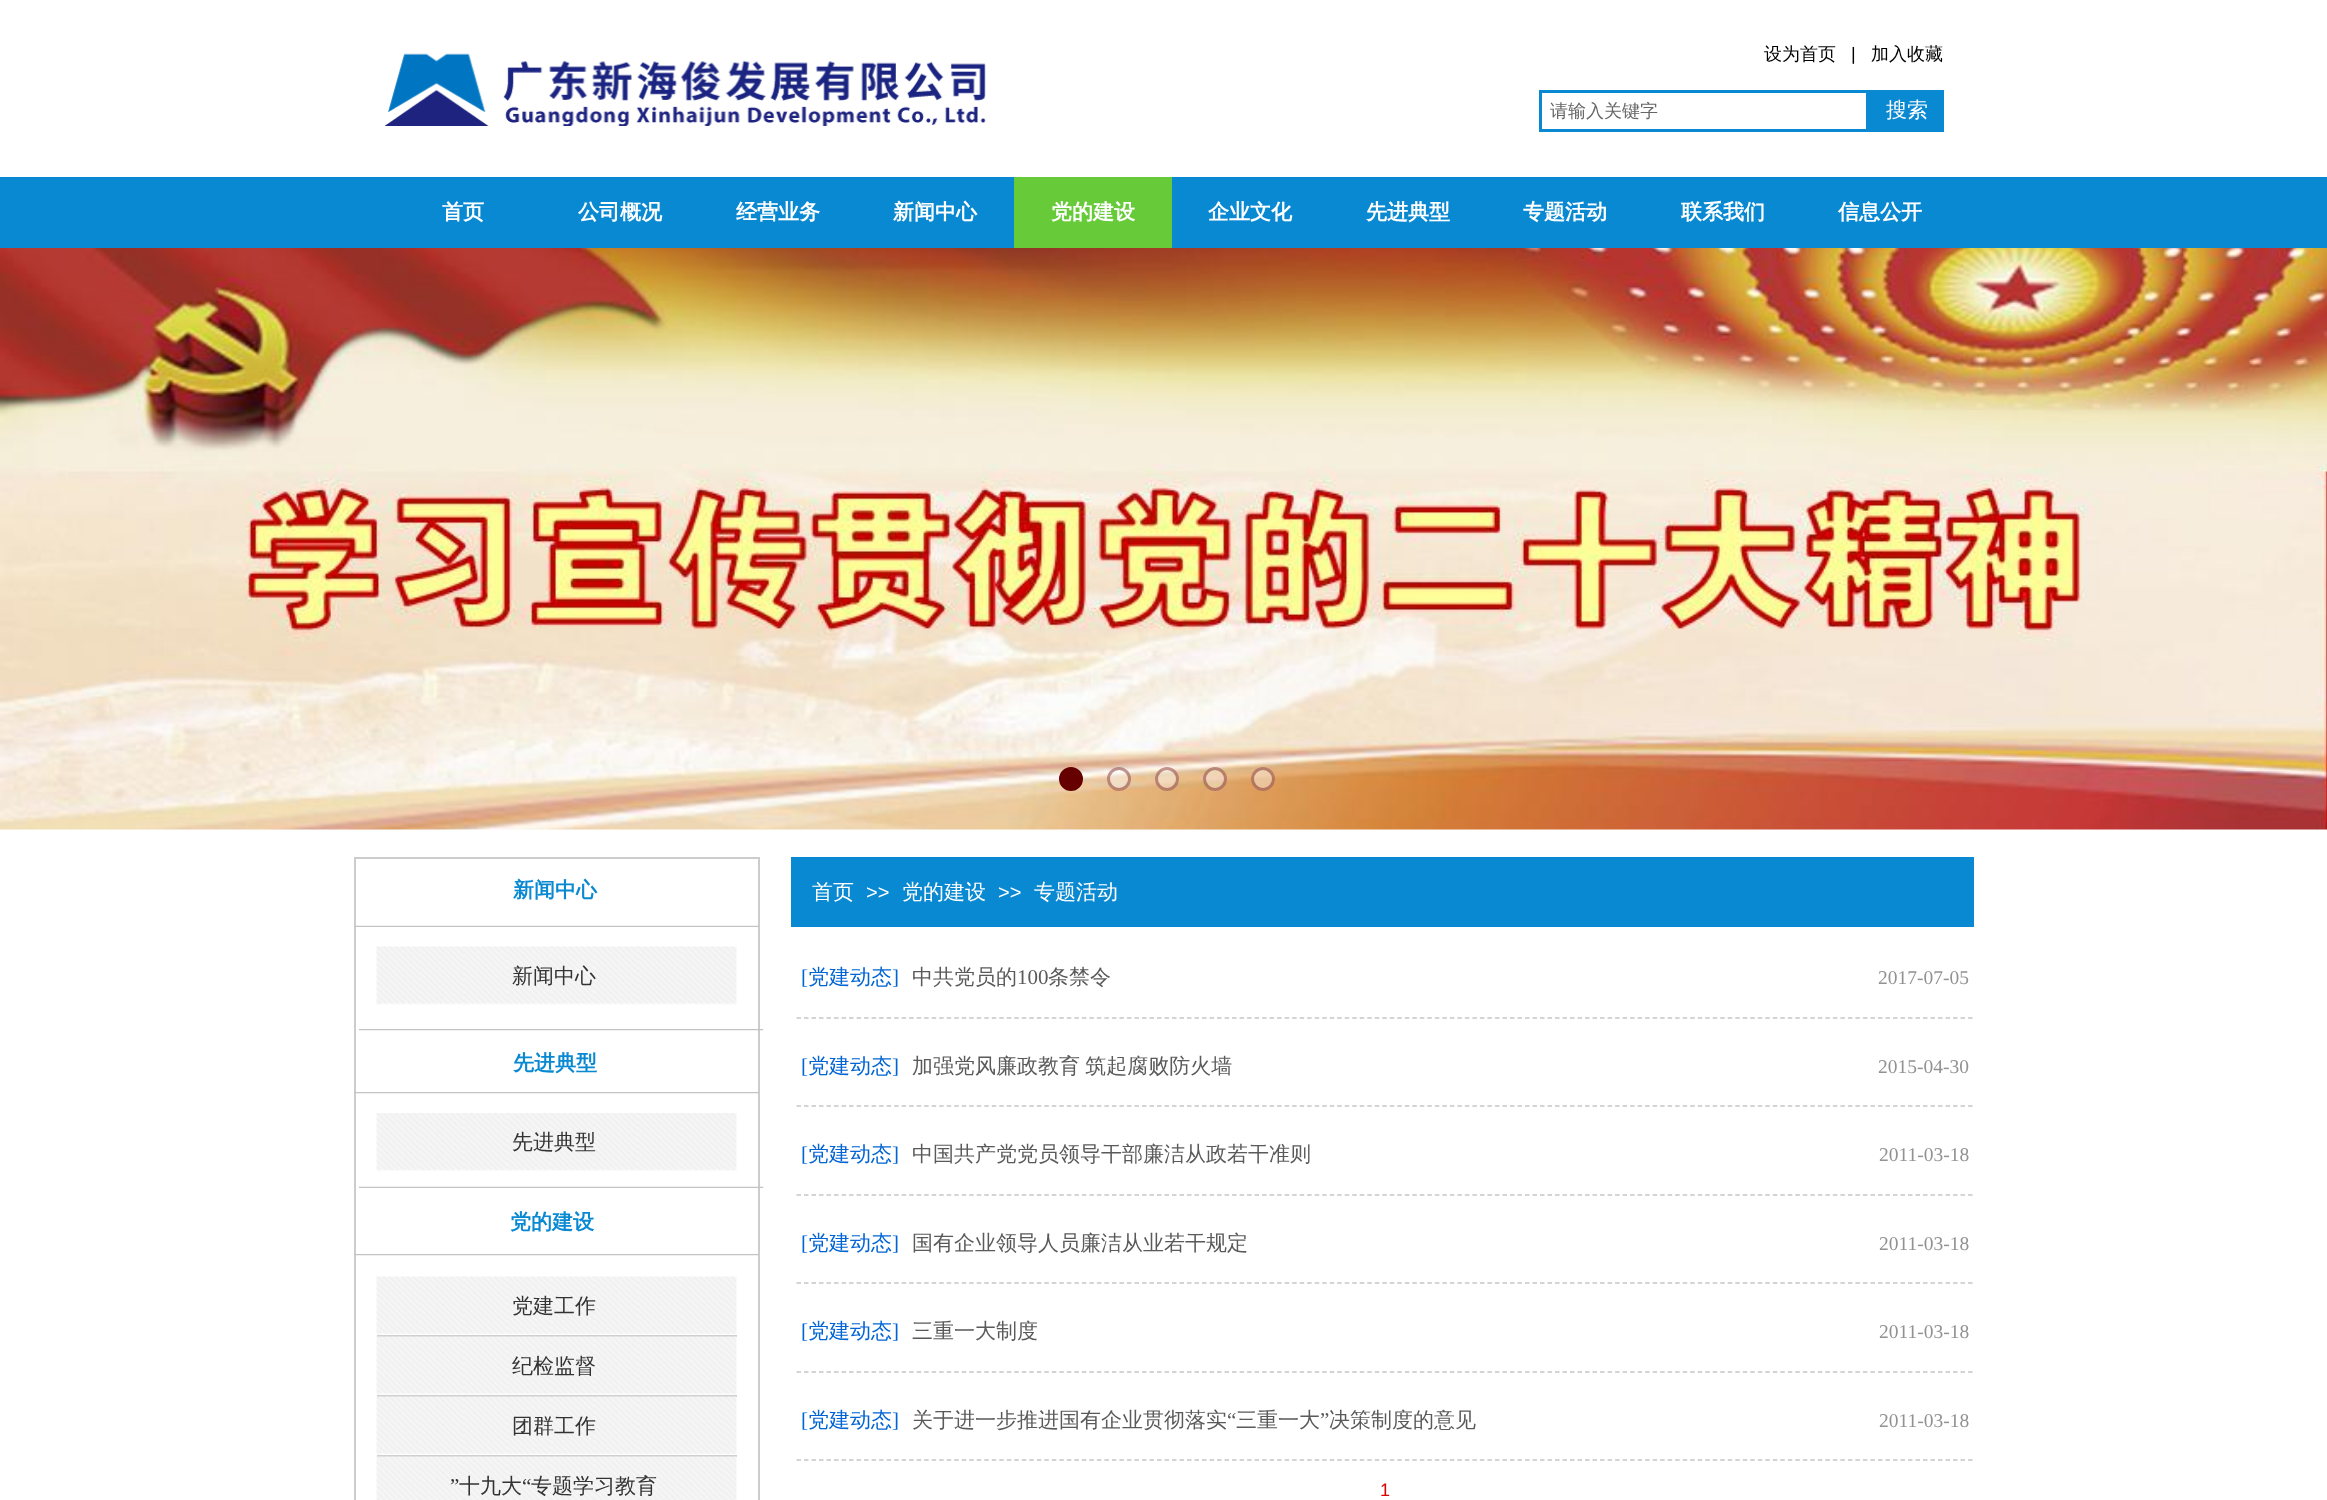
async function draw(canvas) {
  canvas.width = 2327
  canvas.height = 1500
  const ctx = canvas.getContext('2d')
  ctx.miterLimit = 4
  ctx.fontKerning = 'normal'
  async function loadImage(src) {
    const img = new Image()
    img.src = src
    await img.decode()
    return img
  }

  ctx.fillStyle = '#fff'
  ctx.fillRect(0, 0, 2327, 1500)
  ctx.drawImage(await loadImage('image0.png'), 384, 53, 602, 73)
  ctx.font = '500 18px WenQuanYi Zen Hei'
  ctx.fillStyle = '#000'
  ctx.fillText('设为首页', 1764, 60)
  ctx.font = '18px Liberation Sans'
  ctx.fillText('|', 1851, 60)
  ctx.font = '500 18px WenQuanYi Zen Hei'
  ctx.fillText('加入收藏', 1871, 60)
  ctx.strokeStyle = '#0989d2'
  ctx.lineWidth = 3
  ctx.strokeRect(1540.5, 91.5, 327, 39)
  ctx.fillStyle = '#666'
  ctx.fillText('请输入关键字', 1550, 117)
  ctx.fillStyle = '#0989d2'
  ctx.fillRect(1869, 90, 75, 42)
  ctx.font = '500 21px WenQuanYi Zen Hei'
  ctx.fillStyle = '#fff'
  ctx.fillText('搜索', 1886, 117)
  ctx.fillStyle = '#0989d2'
  ctx.fillRect(0, 177, 2327, 71)
  ctx.font = 'bold 21px WenQuanYi Zen Hei'
  ctx.fillStyle = '#fff'
  ctx.fillText('首页', 442, 219)
  ctx.fillText('公司概况', 578, 219)
  ctx.fillText('经营业务', 736, 219)
  ctx.fillText('新闻中心', 893, 219)
  ctx.fillStyle = '#67ca39'
  ctx.fillRect(1014, 177, 158, 71)
  ctx.fillStyle = '#fff'
  ctx.fillText('党的建设', 1051, 219)
  ctx.fillText('企业文化', 1208, 219)
  ctx.fillText('先进典型', 1366, 219)
  ctx.fillText('专题活动', 1523, 219)
  ctx.fillText('联系我们', 1681, 219)
  ctx.fillText('信息公开', 1838, 219)
  ctx.drawImage(await loadImage('image1.png'), 0, 248, 2327, 582)
  ctx.fillStyle = '#600'
  ctx.beginPath()
  ctx.arc(1071, 779, 10.5, 0, 2 * Math.PI)
  ctx.fill()
  ctx.strokeStyle = '#600'
  ctx.stroke()
  ctx.fillStyle = '#ffffff66'
  ctx.beginPath()
  ctx.arc(1119, 779, 12, 0, 2 * Math.PI)
  ctx.fill()
  ctx.beginPath()
  ctx.arc(1119, 779, 10.5, 0, 2 * Math.PI)
  ctx.strokeStyle = '#66000066'
  ctx.stroke()
  ctx.beginPath()
  ctx.arc(1167, 779, 12, 0, 2 * Math.PI)
  ctx.fill()
  ctx.beginPath()
  ctx.arc(1167, 779, 10.5, 0, 2 * Math.PI)
  ctx.stroke()
  ctx.beginPath()
  ctx.arc(1215, 779, 12, 0, 2 * Math.PI)
  ctx.fill()
  ctx.beginPath()
  ctx.arc(1215, 779, 10.5, 0, 2 * Math.PI)
  ctx.stroke()
  ctx.beginPath()
  ctx.arc(1263, 779, 12, 0, 2 * Math.PI)
  ctx.fill()
  ctx.beginPath()
  ctx.arc(1263, 779, 10.5, 0, 2 * Math.PI)
  ctx.stroke()
  ctx.fillStyle = '#ccc'
  ctx.fillRect(354, 857, 405, 2)
  ctx.fillRect(758, 857, 2, 643)
  ctx.fillRect(354, 857, 2, 643)
  ctx.fillStyle = '#0989d2'
  ctx.fillRect(791, 857, 1183, 70)
  ctx.fillText('新闻中心', 513, 897)
  ctx.font = '500 21px WenQuanYi Zen Hei'
  ctx.fillStyle = '#fff'
  ctx.fillText('首页', 812, 899)
  ctx.font = '20px Liberation Sans'
  ctx.fillText('>>', 866, 899)
  ctx.font = '500 21px WenQuanYi Zen Hei'
  ctx.fillText('党的建设', 902, 899)
  ctx.font = '20px Liberation Sans'
  ctx.fillText('>>', 998, 899)
  ctx.font = '500 21px WenQuanYi Zen Hei'
  ctx.fillText('专题活动', 1034, 899)
  ctx.drawImage(await loadImage('image2.png'), 354, 925, 405, 2)
  ctx.drawImage(await loadImage('image3.png'), 376, 946, 361, 59)
  ctx.fillStyle = '#333'
  ctx.fillText('新闻中心', 512, 983)
  ctx.font = '21px Liberation Serif'
  ctx.fillStyle = '#0064d4'
  ctx.fillText('[', 801, 984)
  ctx.font = '500 21px WenQuanYi Zen Hei'
  ctx.fillText('党建动态', 808, 984)
  ctx.font = '21px Liberation Serif'
  ctx.fillText(']', 892, 984)
  ctx.font = '500 21px WenQuanYi Zen Hei'
  ctx.fillStyle = '#5a5a5a'
  ctx.fillText('中共党员的', 912, 984)
  ctx.font = '21px Liberation Serif'
  ctx.fillText('100', 1017, 984)
  ctx.font = '500 21px WenQuanYi Zen Hei'
  ctx.fillText('条禁令', 1048, 984)
  ctx.font = '19.5px Liberation Serif'
  ctx.fillStyle = '#929292'
  ctx.fillText('2017-07-05', 1878, 984)
  ctx.beginPath()
  ctx.moveTo(796.5, 1018)
  ctx.lineTo(1974, 1018)
  ctx.strokeStyle = '#c6c6c6'
  ctx.lineWidth = 1.5
  ctx.setLineDash([4.5, 3.01])
  ctx.stroke()
  ctx.font = '21px Liberation Serif'
  ctx.fillStyle = '#0064d4'
  ctx.fillText('[', 801, 1073)
  ctx.font = '500 21px WenQuanYi Zen Hei'
  ctx.fillText('党建动态', 808, 1073)
  ctx.font = '21px Liberation Serif'
  ctx.fillText(']', 892, 1073)
  ctx.wordSpacing = '-1px'
  ctx.font = '500 21px WenQuanYi Zen Hei'
  ctx.fillStyle = '#5a5a5a'
  ctx.fillText('加强党风廉政教育 筑起腐败防火墙', 912, 1073)
  ctx.wordSpacing = '0px'
  ctx.font = '19.5px Liberation Serif'
  ctx.fillStyle = '#929292'
  ctx.fillText('2015-04-30', 1878, 1073)
  ctx.beginPath()
  ctx.moveTo(796.5, 1106)
  ctx.lineTo(1974, 1106)
  ctx.stroke()
  ctx.font = '21px Liberation Serif'
  ctx.fillStyle = '#0064d4'
  ctx.fillText('[', 801, 1161)
  ctx.font = '500 21px WenQuanYi Zen Hei'
  ctx.fillText('党建动态', 808, 1161)
  ctx.font = '21px Liberation Serif'
  ctx.fillText(']', 892, 1161)
  ctx.font = '500 21px WenQuanYi Zen Hei'
  ctx.fillStyle = '#5a5a5a'
  ctx.fillText('中国共产党党员领导干部廉洁从政若干准则', 912, 1161)
  ctx.font = '19.5px Liberation Serif'
  ctx.fillStyle = '#929292'
  ctx.fillText('2011-03-18', 1879, 1161)
  ctx.beginPath()
  ctx.moveTo(796.5, 1195)
  ctx.lineTo(1974, 1195)
  ctx.stroke()
  ctx.font = '21px Liberation Serif'
  ctx.fillStyle = '#0064d4'
  ctx.fillText('[', 801, 1250)
  ctx.font = '500 21px WenQuanYi Zen Hei'
  ctx.fillText('党建动态', 808, 1250)
  ctx.font = '21px Liberation Serif'
  ctx.fillText(']', 892, 1250)
  ctx.font = '500 21px WenQuanYi Zen Hei'
  ctx.fillStyle = '#5a5a5a'
  ctx.fillText('国有企业领导人员廉洁从业若干规定', 912, 1250)
  ctx.font = '19.5px Liberation Serif'
  ctx.fillStyle = '#929292'
  ctx.fillText('2011-03-18', 1879, 1250)
  ctx.beginPath()
  ctx.moveTo(796.5, 1283)
  ctx.lineTo(1974, 1283)
  ctx.stroke()
  ctx.font = '21px Liberation Serif'
  ctx.fillStyle = '#0064d4'
  ctx.fillText('[', 801, 1338)
  ctx.font = '500 21px WenQuanYi Zen Hei'
  ctx.fillText('党建动态', 808, 1338)
  ctx.font = '21px Liberation Serif'
  ctx.fillText(']', 892, 1338)
  ctx.font = '500 21px WenQuanYi Zen Hei'
  ctx.fillStyle = '#5a5a5a'
  ctx.fillText('三重一大制度', 912, 1338)
  ctx.font = '19.5px Liberation Serif'
  ctx.fillStyle = '#929292'
  ctx.fillText('2011-03-18', 1879, 1338)
  ctx.beginPath()
  ctx.moveTo(796.5, 1372)
  ctx.lineTo(1974, 1372)
  ctx.stroke()
  ctx.font = '21px Liberation Serif'
  ctx.fillStyle = '#0064d4'
  ctx.fillText('[', 801, 1427)
  ctx.font = '500 21px WenQuanYi Zen Hei'
  ctx.fillText('党建动态', 808, 1427)
  ctx.font = '21px Liberation Serif'
  ctx.fillText(']', 892, 1427)
  ctx.font = '500 21px WenQuanYi Zen Hei'
  ctx.fillStyle = '#5a5a5a'
  ctx.fillText('关于进一步推进国有企业贯彻落实', 912, 1427)
  ctx.font = '21px Liberation Serif'
  ctx.fillText('“', 1227, 1427)
  ctx.font = '500 21px WenQuanYi Zen Hei'
  ctx.fillText('三重一大', 1236, 1427)
  ctx.font = '21px Liberation Serif'
  ctx.fillText('”', 1320, 1427)
  ctx.font = '500 21px WenQuanYi Zen Hei'
  ctx.fillText('决策制度的意见', 1329, 1427)
  ctx.font = '19.5px Liberation Serif'
  ctx.fillStyle = '#929292'
  ctx.fillText('2011-03-18', 1879, 1427)
  ctx.beginPath()
  ctx.moveTo(796.5, 1460)
  ctx.lineTo(1974, 1460)
  ctx.stroke()
  ctx.font = '18px Liberation Sans'
  ctx.fillStyle = '#d00'
  ctx.fillText('1', 1380, 1496)
  ctx.drawImage(await loadImage('image4.png'), 358, 1029, 406, 2)
  ctx.font = 'bold 21px WenQuanYi Zen Hei'
  ctx.fillStyle = '#0989d2'
  ctx.fillText('先进典型', 513, 1070)
  ctx.drawImage(await loadImage('image5.png'), 354, 1092, 405, 2)
  ctx.drawImage(await loadImage('image6.png'), 376, 1113, 361, 58)
  ctx.font = '500 21px WenQuanYi Zen Hei'
  ctx.fillStyle = '#333'
  ctx.fillText('先进典型', 512, 1149)
  ctx.drawImage(await loadImage('image7.png'), 358, 1186, 406, 2)
  ctx.font = 'bold 21px WenQuanYi Zen Hei'
  ctx.fillStyle = '#0989d2'
  ctx.fillText('党的建设', 510, 1229)
  ctx.drawImage(await loadImage('image5.png'), 354, 1254, 405, 2)
  ctx.drawImage(await loadImage('image8.png'), 376, 1276, 361, 59)
  ctx.fillStyle = '#d0d0d0'
  ctx.fillRect(377, 1335, 360, 2)
  ctx.font = '500 21px WenQuanYi Zen Hei'
  ctx.fillStyle = '#333'
  ctx.fillText('党建工作', 512, 1313)
  ctx.drawImage(await loadImage('image9.png'), 376, 1336, 361, 59)
  ctx.fillStyle = '#d0d0d0'
  ctx.fillRect(377, 1395, 360, 2)
  ctx.fillStyle = '#333'
  ctx.fillText('纪检监督', 512, 1373)
  ctx.drawImage(await loadImage('image10.png'), 376, 1396, 361, 59)
  ctx.fillStyle = '#d0d0d0'
  ctx.fillRect(377, 1455, 360, 2)
  ctx.fillStyle = '#333'
  ctx.fillText('团群工作', 512, 1433)
  ctx.drawImage(await loadImage('image11.png'), 376, 1456, 361, 44)
  ctx.font = '21px Liberation Serif'
  ctx.fillText('”', 450, 1493)
  ctx.font = '500 21px WenQuanYi Zen Hei'
  ctx.fillText('十九大', 459, 1493)
  ctx.font = '21px Liberation Serif'
  ctx.fillText('“', 522, 1493)
  ctx.font = '500 21px WenQuanYi Zen Hei'
  ctx.fillText('专题学习教育', 531, 1493)
}

draw(document.querySelector('canvas'))
